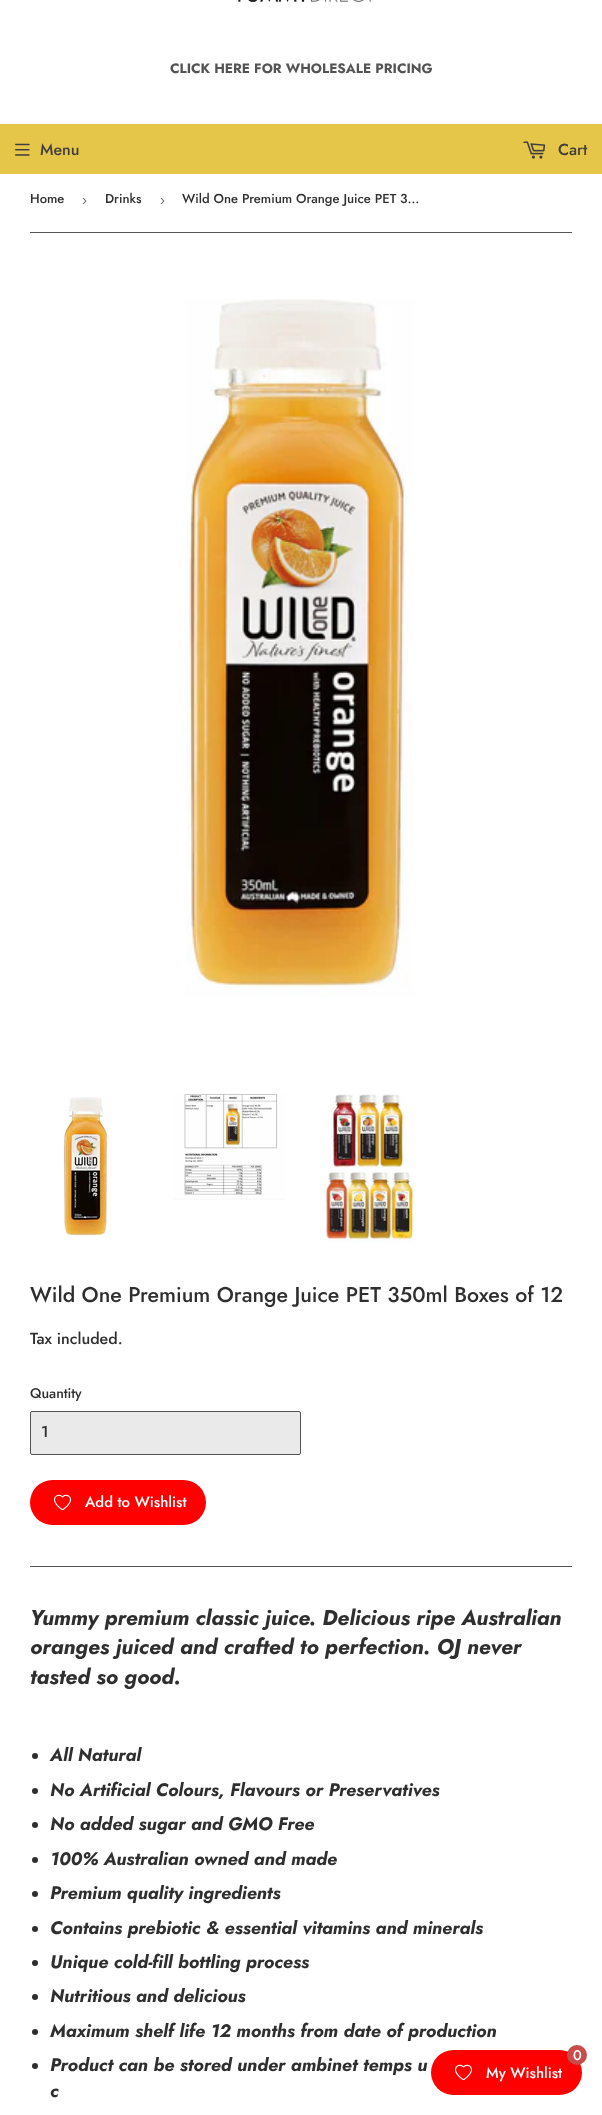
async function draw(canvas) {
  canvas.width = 602
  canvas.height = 2115
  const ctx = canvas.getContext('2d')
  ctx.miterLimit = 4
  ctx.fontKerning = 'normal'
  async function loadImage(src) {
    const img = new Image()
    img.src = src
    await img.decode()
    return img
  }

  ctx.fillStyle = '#fff'
  ctx.fillRect(0, 0, 602, 2115)
  ctx.drawImage(await loadImage('image0.png'), 238, 0, 133, 3)
  ctx.font = 'bold 13.6px Jost'
  ctx.fillStyle = '#545454'
  ctx.fillText('CLICK HERE FOR WHOLESALE PRICING', 170, 73)
  ctx.fillStyle = '#e5c649'
  ctx.fillRect(0, 124, 602, 50)
  ctx.drawImage(await loadImage('image1.png'), 15, 143, 15, 13)
  ctx.font = '500 16px Jost'
  ctx.fillStyle = '#413e3e'
  ctx.fillText('Menu', 40, 155)
  ctx.drawImage(await loadImage('image2.png'), 523, 141, 23, 18)
  ctx.fillText('Cart', 558, 155)
  ctx.fillStyle = '#545454'
  ctx.fillRect(30, 232, 542, 1)
  ctx.font = '500 13px Jost'
  ctx.fillStyle = '#2f2f2f'
  ctx.fillText('Home', 30, 203)
  ctx.font = '15px Liberation Sans'
  ctx.fillStyle = '#767676'
  ctx.fillText('›', 82, 205)
  ctx.font = '500 13px Jost'
  ctx.fillStyle = '#2f2f2f'
  ctx.fillText('Drinks', 105, 203)
  ctx.font = '15px Liberation Sans'
  ctx.fillStyle = '#767676'
  ctx.fillText('›', 160, 205)
  ctx.font = '500 13px Jost'
  ctx.fillStyle = '#2f2f2f'
  ctx.fillText('Wild One Premium Orange Juice PET 3…', 182, 203)
  ctx.drawImage(await loadImage('image3.png'), 186, 299, 228, 698)
  ctx.drawImage(await loadImage('image4.png'), 63, 1097, 49, 143)
  ctx.drawImage(await loadImage('image5.png'), 173, 1093, 113, 107)
  ctx.drawImage(await loadImage('image6.png'), 324, 1094, 92, 149)
  ctx.font = '500 21.3px Jost'
  ctx.fillText('Wild One Premium Orange Juice PET 350ml Boxes of 12', 30, 1302)
  ctx.font = '500 16px Jost'
  ctx.fillText('Tax included.', 30, 1344)
  ctx.font = '500 14px Jost'
  ctx.fillText('Quantity', 30, 1398)
  ctx.fillStyle = '#eaeaea'
  ctx.beginPath()
  ctx.roundRect(30.5, 1411.5, 270, 43, 1.5)
  ctx.fill()
  ctx.strokeStyle = '#545454'
  ctx.stroke()
  ctx.font = '500 16px Jost'
  ctx.fillStyle = '#2f2f2f'
  ctx.fillText('1', 41, 1437)
  ctx.fillStyle = '#f00'
  ctx.beginPath()
  ctx.roundRect(30, 1480, 176, 45, 22.5)
  ctx.fill()
  ctx.drawImage(await loadImage('image7.png'), 53, 1494, 19, 16)
  ctx.font = '500 15px Jost'
  ctx.fillStyle = '#fff'
  ctx.fillText('Add to Wishlist', 85, 1507)
  ctx.fillStyle = '#545454'
  ctx.fillRect(30, 1566, 542, 1)
  ctx.font = 'italic bold 21.3px Jost'
  ctx.fillStyle = '#2f2f2f'
  ctx.fillText('Yummy premium classic juice. Delicious ripe Australian', 30, 1625)
  ctx.fillText('oranges juiced and crafted to perfection. OJ never', 30, 1654)
  ctx.fillText('tasted so good.', 30, 1684)
  ctx.beginPath()
  ctx.arc(35, 1756, 3, 0, 2 * Math.PI)
  ctx.fill()
  ctx.font = 'italic bold 18.1px Jost'
  ctx.fillText('All Natural', 50, 1761)
  ctx.beginPath()
  ctx.arc(35, 1791, 3, 0, 2 * Math.PI)
  ctx.fill()
  ctx.fillText('No Artificial Colours, Flavours or Preservatives', 50, 1796)
  ctx.beginPath()
  ctx.arc(35, 1825, 3, 0, 2 * Math.PI)
  ctx.fill()
  ctx.fillText('No added sugar and GMO Free', 50, 1830)
  ctx.beginPath()
  ctx.arc(35, 1860, 3, 0, 2 * Math.PI)
  ctx.fill()
  ctx.fillText('100% Australian owned and made', 50, 1865)
  ctx.beginPath()
  ctx.arc(35, 1894, 3, 0, 2 * Math.PI)
  ctx.fill()
  ctx.fillText('Premium quality ingredients', 50, 1899)
  ctx.beginPath()
  ctx.arc(35, 1929, 3, 0, 2 * Math.PI)
  ctx.fill()
  ctx.fillText('Contains prebiotic & essential vitamins and minerals', 50, 1934)
  ctx.beginPath()
  ctx.arc(35, 1963, 3, 0, 2 * Math.PI)
  ctx.fill()
  ctx.fillText('Unique cold-fill bottling process', 50, 1968)
  ctx.beginPath()
  ctx.arc(35, 1997, 3, 0, 2 * Math.PI)
  ctx.fill()
  ctx.fillText('Nutritious and delicious', 50, 2002)
  ctx.beginPath()
  ctx.arc(35, 2032, 3, 0, 2 * Math.PI)
  ctx.fill()
  ctx.fillText('Maximum shelf life 12 months from date of production', 50, 2037)
  ctx.beginPath()
  ctx.arc(35, 2066, 3, 0, 2 * Math.PI)
  ctx.fill()
  ctx.fillText('Product can be stored under ambinet temps u', 50, 2071)
  ctx.fillText('c', 50, 2097)
  ctx.fillStyle = '#f00'
  ctx.beginPath()
  ctx.roundRect(431, 2050, 151, 45, 22.5)
  ctx.fill()
  ctx.fillStyle = '#c74d4d'
  ctx.beginPath()
  ctx.arc(577, 2055, 10, 0, 2 * Math.PI)
  ctx.fill()
  ctx.font = '500 14px Jost'
  ctx.fillStyle = '#fff'
  ctx.fillText('0', 573, 2060)
  ctx.drawImage(await loadImage('image7.png'), 454, 2064, 19, 16)
  ctx.font = '500 15px Jost'
  ctx.fillText('My Wishlist', 486, 2078)
}

draw(document.querySelector('canvas'))
